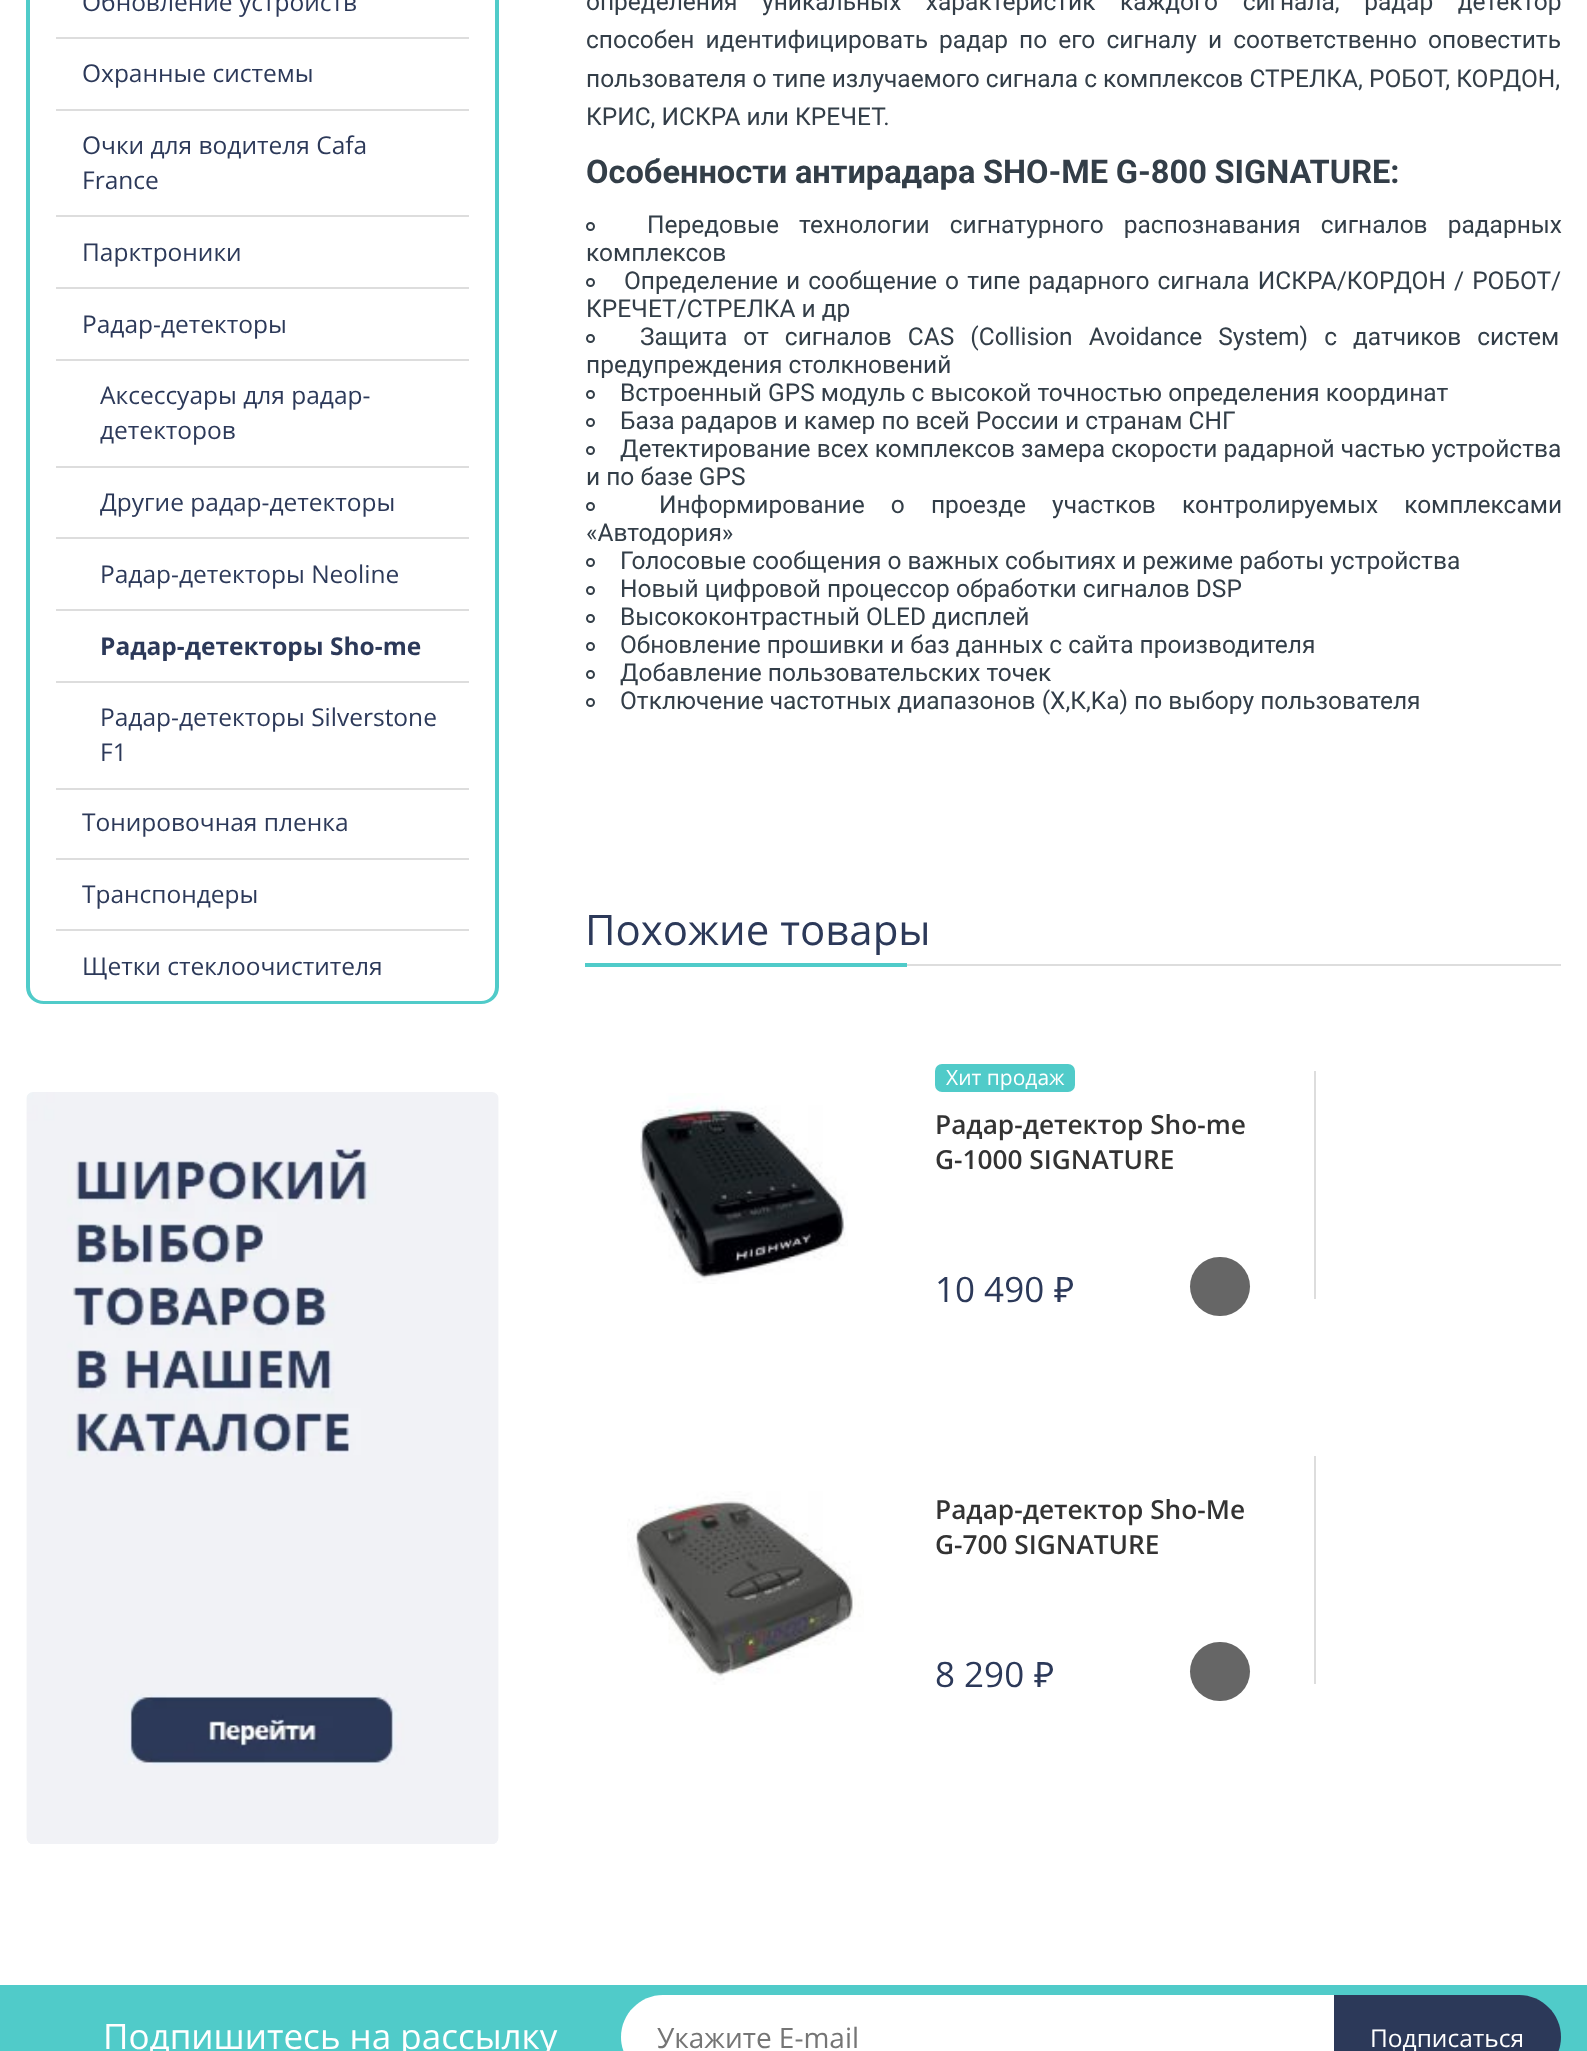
async function draw(canvas) {
  canvas.width = 1587
  canvas.height = 2051
  const ctx = canvas.getContext('2d')
  ctx.miterLimit = 4
  ctx.fontKerning = 'normal'
  async function loadImage(src) {
    const img = new Image()
    img.src = src
    await img.decode()
    return img
  }

  ctx.fillStyle = '#fff'
  ctx.fillRect(0, 0, 1587, 2051)
  ctx.fillStyle = '#50cbc9'
  ctx.beginPath()
  ctx.moveTo(26, -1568)
  ctx.lineTo(499, -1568)
  ctx.lineTo(499, 987)
  ctx.bezierCurveTo(499, 997, 491, 1004, 481, 1004)
  ctx.lineTo(44, 1004)
  ctx.bezierCurveTo(34, 1004, 26, 997, 26, 987)
  ctx.closePath()
  ctx.moveTo(30, -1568)
  ctx.lineTo(495, -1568)
  ctx.lineTo(495, 987)
  ctx.bezierCurveTo(495, 995, 489, 1001, 481, 1001)
  ctx.lineTo(44, 1001)
  ctx.bezierCurveTo(36, 1001, 30, 995, 30, 987)
  ctx.closePath()
  ctx.fill('evenodd')
  ctx.font = '24.5px Open Sans'
  ctx.fillStyle = '#2c3959'
  ctx.fillText('Обновление устройств', 82, 11)
  ctx.fillStyle = '#ddd'
  ctx.fillRect(56, 37, 413, 2)
  ctx.fillStyle = '#2c3959'
  ctx.fillText('Охранные системы', 82, 82)
  ctx.fillStyle = '#ddd'
  ctx.fillRect(56, 109, 413, 2)
  ctx.fillStyle = '#2c3959'
  ctx.fillText('Очки для водителя Cafa', 82, 154)
  ctx.fillText('France', 82, 189)
  ctx.fillStyle = '#ddd'
  ctx.fillRect(56, 215, 413, 2)
  ctx.fillStyle = '#2c3959'
  ctx.fillText('Парктроники', 82, 261)
  ctx.fillStyle = '#ddd'
  ctx.fillRect(56, 287, 413, 2)
  ctx.fillStyle = '#2c3959'
  ctx.fillText('Радар-детекторы', 82, 333)
  ctx.fillStyle = '#ddd'
  ctx.fillRect(56, 359, 413, 2)
  ctx.fillStyle = '#2c3959'
  ctx.fillText('Аксессуары для радар-', 100, 404)
  ctx.fillText('детекторов', 100, 439)
  ctx.fillStyle = '#ddd'
  ctx.fillRect(56, 466, 413, 2)
  ctx.fillStyle = '#2c3959'
  ctx.fillText('Другие радар-детекторы', 100, 511)
  ctx.fillStyle = '#ddd'
  ctx.fillRect(56, 537, 413, 2)
  ctx.fillStyle = '#2c3959'
  ctx.fillText('Радар-детекторы Neoline', 100, 583)
  ctx.fillStyle = '#ddd'
  ctx.fillRect(56, 609, 413, 2)
  ctx.font = 'bold 24.5px Open Sans'
  ctx.fillStyle = '#2c3959'
  ctx.fillText('Радар-детекторы Sho-me', 100, 655)
  ctx.fillStyle = '#ddd'
  ctx.fillRect(56, 681, 413, 2)
  ctx.font = '24.5px Open Sans'
  ctx.fillStyle = '#2c3959'
  ctx.fillText('Радар-детекторы Silverstone', 100, 726)
  ctx.fillText('F1', 100, 761)
  ctx.fillStyle = '#ddd'
  ctx.fillRect(56, 788, 413, 2)
  ctx.fillStyle = '#2c3959'
  ctx.fillText('Тонировочная пленка', 82, 831)
  ctx.fillStyle = '#ddd'
  ctx.fillRect(56, 858, 413, 2)
  ctx.fillStyle = '#2c3959'
  ctx.fillText('Транспондеры', 82, 903)
  ctx.fillStyle = '#ddd'
  ctx.fillRect(56, 929, 413, 2)
  ctx.fillStyle = '#2c3959'
  ctx.fillText('Щетки стеклоочистителя', 82, 975)
  ctx.drawImage(await loadImage('image0.png'), 26, 1092, 473, 752)
  ctx.wordSpacing = '18.5px'
  ctx.font = '24.5px Roboto'
  ctx.fillStyle = '#333e48'
  ctx.fillText('определения уникальных характеристик каждого сигнала, радар детектор', 586, 10)
  ctx.wordSpacing = '5px'
  ctx.fillText('способен идентифицировать радар по его сигналу и соответственно оповестить', 586, 48)
  ctx.wordSpacing = '0px'
  ctx.fillText('пользователя о типе излучаемого сигнала с комплексов СТРЕЛКА, РОБОТ, КОРДОН,', 586, 87)
  ctx.fillText('КРИС, ИСКРА или КРЕЧЕТ.', 586, 125)
  ctx.wordSpacing = '-0.5px'
  ctx.font = 'bold 32.6px Roboto'
  ctx.fillText('Особенности антирадара SHO-ME G-800 SIGNATURE:', 586, 183)
  ctx.beginPath()
  ctx.arc(590.5, 226.5, 3.5, 0, 2 * Math.PI)
  ctx.strokeStyle = '#333e48'
  ctx.lineWidth = 2
  ctx.stroke()
  ctx.wordSpacing = '14px'
  ctx.font = '24.5px Roboto'
  ctx.fillText('Передовые технологии сигнатурного распознавания сигналов радарных', 647, 233)
  ctx.wordSpacing = '0px'
  ctx.fillText('комплексов', 586, 261)
  ctx.beginPath()
  ctx.arc(590.5, 282.5, 3.5, 0, 2 * Math.PI)
  ctx.stroke()
  ctx.wordSpacing = '2px'
  ctx.fillText('Определение и сообщение о типе радарного сигнала ИСКРА/КОРДОН / РОБОТ/', 624, 289)
  ctx.wordSpacing = '0px'
  ctx.fillText('КРЕЧЕТ/СТРЕЛКА и др', 586, 317)
  ctx.beginPath()
  ctx.arc(590.5, 338.5, 3.5, 0, 2 * Math.PI)
  ctx.stroke()
  ctx.wordSpacing = '10px'
  ctx.fillText('Защита от сигналов CAS (Collision Avoidance System) с датчиков систем', 640, 345)
  ctx.wordSpacing = '0px'
  ctx.fillText('предупреждения столкновений', 586, 373)
  ctx.beginPath()
  ctx.arc(590.5, 394.5, 3.5, 0, 2 * Math.PI)
  ctx.stroke()
  ctx.fillText('Встроенный GPS модуль с высокой точностью определения координат', 620, 401)
  ctx.beginPath()
  ctx.arc(590.5, 422.5, 3.5, 0, 2 * Math.PI)
  ctx.stroke()
  ctx.fillText('База радаров и камер по всей России и странам СНГ', 620, 429)
  ctx.beginPath()
  ctx.arc(590.5, 450.5, 3.5, 0, 2 * Math.PI)
  ctx.stroke()
  ctx.fillText('Детектирование всех комплексов замера скорости радарной частью устройства', 620, 457)
  ctx.fillText('и по базе GPS', 586, 485)
  ctx.beginPath()
  ctx.arc(590.5, 506.5, 3.5, 0, 2 * Math.PI)
  ctx.stroke()
  ctx.wordSpacing = '20px'
  ctx.fillText('Информирование о проезде участков контролируемых комплексами', 659, 513)
  ctx.wordSpacing = '0px'
  ctx.fillText('«Автодория»', 586, 541)
  ctx.beginPath()
  ctx.arc(590.5, 562.5, 3.5, 0, 2 * Math.PI)
  ctx.stroke()
  ctx.fillText('Голосовые сообщения о важных событиях и режиме работы устройства', 620, 569)
  ctx.beginPath()
  ctx.arc(590.5, 590.5, 3.5, 0, 2 * Math.PI)
  ctx.stroke()
  ctx.fillText('Новый цифровой процессор обработки сигналов DSP', 620, 597)
  ctx.beginPath()
  ctx.arc(590.5, 618.5, 3.5, 0, 2 * Math.PI)
  ctx.stroke()
  ctx.fillText('Высококонтрастный OLED дисплей', 620, 625)
  ctx.beginPath()
  ctx.arc(590.5, 646.5, 3.5, 0, 2 * Math.PI)
  ctx.stroke()
  ctx.fillText('Обновление прошивки и баз данных с сайта производителя', 620, 653)
  ctx.beginPath()
  ctx.arc(590.5, 674.5, 3.5, 0, 2 * Math.PI)
  ctx.stroke()
  ctx.fillText('Добавление пользовательских точек', 620, 681)
  ctx.beginPath()
  ctx.arc(590.5, 702.5, 3.5, 0, 2 * Math.PI)
  ctx.stroke()
  ctx.fillText('Отключение частотных диапазонов (Х,К,Ka) по выбору пользователя', 620, 709)
  ctx.fillStyle = '#ddd'
  ctx.fillRect(907, 964, 654, 2)
  ctx.font = '42px Open Sans'
  ctx.fillStyle = '#2c3959'
  ctx.fillText('Похожие товары', 585, 945)
  ctx.fillStyle = '#50cbc9'
  ctx.fillRect(585, 963, 322, 4)
  ctx.beginPath()
  ctx.roundRect(935, 1064, 140, 28, 7)
  ctx.fill()
  ctx.font = '21px Open Sans'
  ctx.fillStyle = '#fff'
  ctx.fillText('Хит продаж', 946, 1085)
  ctx.fillStyle = '#ddd'
  ctx.fillRect(1314, 1071, 2, 228)
  ctx.drawImage(await loadImage('image1.png'), 640, 1093, 208, 191)
  ctx.font = '600 26.25px Open Sans'
  ctx.fillStyle = '#333'
  ctx.fillText('Радар-детектор Sho-me', 935, 1134)
  ctx.fillText('G-1000 SIGNATURE', 935, 1169)
  ctx.font = '35px Open Sans'
  ctx.fillStyle = '#2c3959'
  ctx.fillText('10 490', 935, 1302)
  ctx.font = '35px Noto Sans'
  ctx.fillText('₽', 1054, 1302)
  ctx.fillStyle = '#666'
  ctx.beginPath()
  ctx.roundRect(1190, 1257, 60, 59, 29.5)
  ctx.fill()
  ctx.drawImage(await loadImage('image2.png'), 627, 1491, 237, 194)
  ctx.font = '600 26.25px Open Sans'
  ctx.fillStyle = '#333'
  ctx.fillText('Радар-детектор Sho-Me', 935, 1519)
  ctx.fillText('G-700 SIGNATURE', 935, 1554)
  ctx.fillStyle = '#ddd'
  ctx.fillRect(1314, 1456, 2, 228)
  ctx.font = '35px Open Sans'
  ctx.fillStyle = '#2c3959'
  ctx.fillText('8 290', 935, 1687)
  ctx.font = '35px Noto Sans'
  ctx.fillText('₽', 1034, 1687)
  ctx.fillStyle = '#666'
  ctx.beginPath()
  ctx.roundRect(1190, 1642, 60, 59, 29.5)
  ctx.fill()
  ctx.fillStyle = '#50cbc9'
  ctx.fillRect(0, 1985, 1587, 66)
  ctx.font = '35px Open Sans'
  ctx.fillStyle = '#fff'
  ctx.fillText('Подпишитесь на рассылку', 103, 2049)
  ctx.beginPath()
  ctx.moveTo(663, 1995)
  ctx.lineTo(1334, 1995)
  ctx.lineTo(1334, 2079)
  ctx.lineTo(663, 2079)
  ctx.bezierCurveTo(640, 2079, 621, 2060, 621, 2037)
  ctx.bezierCurveTo(621, 2014, 640, 1995, 663, 1995)
  ctx.closePath()
  ctx.fill()
  ctx.font = '28px Open Sans'
  ctx.fillStyle = '#757575'
  ctx.fillText('Укажите E-mail', 657, 2048)
  ctx.fillStyle = '#2c3959'
  ctx.beginPath()
  ctx.moveTo(1334, 1995)
  ctx.lineTo(1519, 1995)
  ctx.bezierCurveTo(1542, 1995, 1561, 2014, 1561, 2037)
  ctx.bezierCurveTo(1561, 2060, 1542, 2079, 1519, 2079)
  ctx.lineTo(1334, 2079)
  ctx.closePath()
  ctx.fill()
  ctx.font = '24.5px Open Sans'
  ctx.fillStyle = '#fff'
  ctx.fillText('Подписаться', 1370, 2047)
}

draw(document.querySelector('canvas'))
